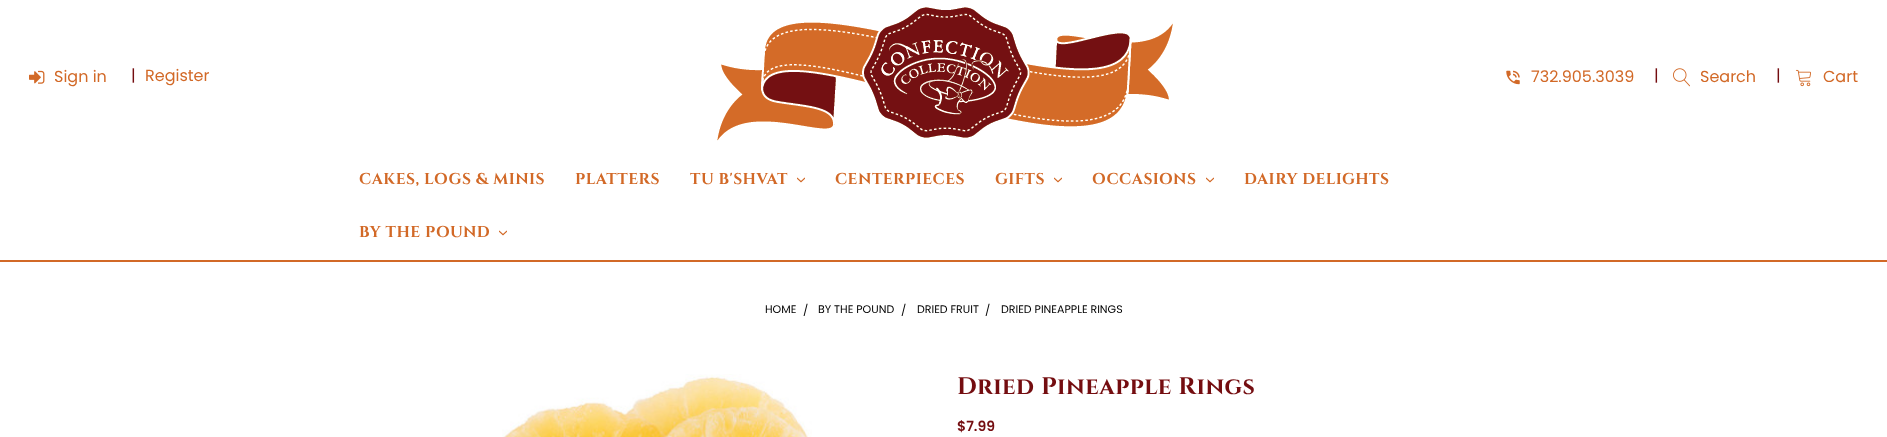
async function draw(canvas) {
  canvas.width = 1887
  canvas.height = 437
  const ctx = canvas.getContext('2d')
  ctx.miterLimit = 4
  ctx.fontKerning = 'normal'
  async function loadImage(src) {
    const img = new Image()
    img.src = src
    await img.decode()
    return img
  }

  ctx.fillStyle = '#fff'
  ctx.fillRect(0, 0, 1887, 437)
  ctx.fillStyle = '#d26927'
  ctx.fillRect(0, 260, 1887, 2)
  ctx.drawImage(await loadImage('image0.png'), 29, 70, 16, 14)
  ctx.font = '16px Poppins'
  ctx.fillText('Sign in', 54, 82)
  ctx.fillStyle = '#740d10'
  ctx.fillText('|', 131, 81)
  ctx.fillStyle = '#d26927'
  ctx.fillText('Register', 145, 81)
  ctx.drawImage(await loadImage('image1.png'), 717, 7, 456, 134)
  ctx.drawImage(await loadImage('image2.png'), 1506, 70, 14, 15)
  ctx.fillText('732.905.3039', 1531, 82)
  ctx.fillStyle = '#740d10'
  ctx.fillText('|', 1654, 81)
  ctx.drawImage(await loadImage('image3.png'), 1673, 68, 17, 19)
  ctx.fillStyle = '#d26927'
  ctx.fillText('Search', 1700, 82)
  ctx.fillStyle = '#740d10'
  ctx.fillText('|', 1776, 81)
  ctx.drawImage(await loadImage('image4.png'), 1795, 69, 16, 18)
  ctx.fillStyle = '#d26927'
  ctx.fillText('Cart', 1823, 82)
  ctx.letterSpacing = '0.5px'
  ctx.font = 'bold 15.6px Cinzel'
  ctx.fillText('CAKES, LOGS & MINIS', 359, 184)
  ctx.fillText('PLATTERS', 575, 184)
  ctx.fillText('TU B\'SHVAT', 690, 184)
  ctx.drawImage(await loadImage('image5.png'), 797, 177, 8, 6)
  ctx.fillText('CENTERPIECES', 835, 184)
  ctx.fillText('GIFTS', 995, 184)
  ctx.drawImage(await loadImage('image5.png'), 1054, 177, 8, 6)
  ctx.fillText('OCCASIONS', 1092, 184)
  ctx.drawImage(await loadImage('image5.png'), 1206, 177, 8, 6)
  ctx.fillText('DAIRY DELIGHTS', 1244, 184)
  ctx.fillText('BY THE POUND', 359, 237)
  ctx.drawImage(await loadImage('image5.png'), 499, 230, 8, 6)
  ctx.letterSpacing = '0px'
  ctx.font = '11px Poppins'
  ctx.fillStyle = '#000'
  ctx.fillText('HOME', 765, 313)
  ctx.fillText('/', 803, 314)
  ctx.fillText('BY THE POUND', 818, 313)
  ctx.fillText('/', 901, 314)
  ctx.fillText('DRIED FRUIT', 917, 313)
  ctx.fillText('/', 985, 314)
  ctx.fillText('DRIED PINEAPPLE RINGS', 1001, 313)
  ctx.drawImage(await loadImage('image6.png'), 502, 374, 310, 63)
  ctx.letterSpacing = '0.5px'
  ctx.font = 'bold 24px Cinzel'
  ctx.fillStyle = '#740d10'
  ctx.fillText('Dried Pineapple Rings', 957, 394)
  ctx.letterSpacing = '0px'
  ctx.font = '600 14px Poppins'
  ctx.fillText('$7.99', 957, 431)
}

draw(document.querySelector('canvas'))
